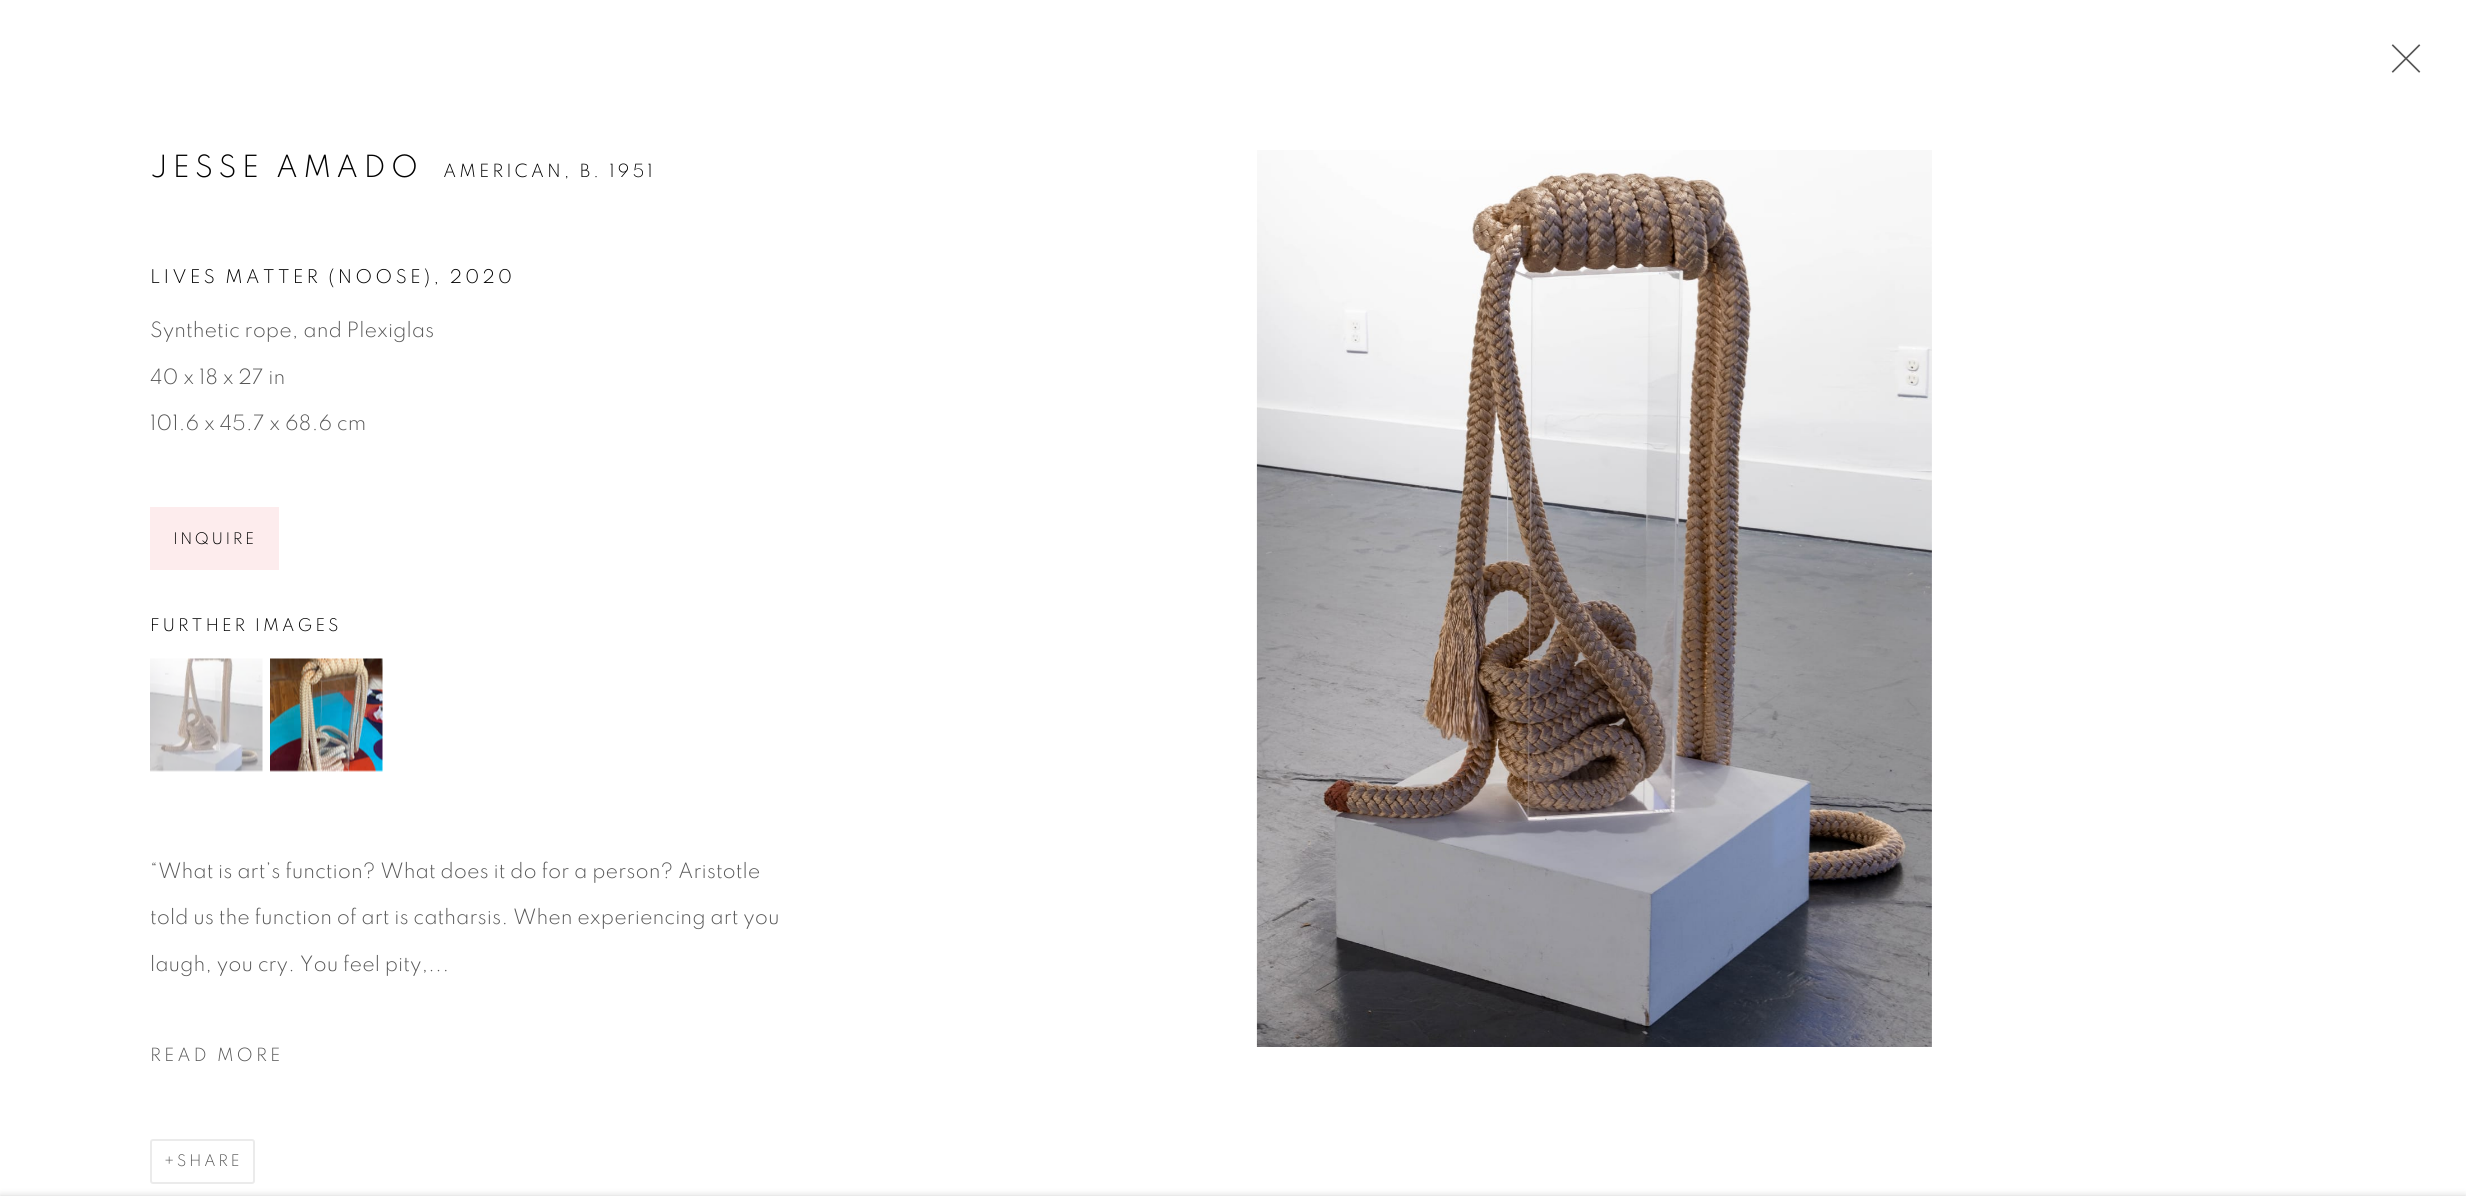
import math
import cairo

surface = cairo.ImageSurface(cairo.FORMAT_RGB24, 2466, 1196)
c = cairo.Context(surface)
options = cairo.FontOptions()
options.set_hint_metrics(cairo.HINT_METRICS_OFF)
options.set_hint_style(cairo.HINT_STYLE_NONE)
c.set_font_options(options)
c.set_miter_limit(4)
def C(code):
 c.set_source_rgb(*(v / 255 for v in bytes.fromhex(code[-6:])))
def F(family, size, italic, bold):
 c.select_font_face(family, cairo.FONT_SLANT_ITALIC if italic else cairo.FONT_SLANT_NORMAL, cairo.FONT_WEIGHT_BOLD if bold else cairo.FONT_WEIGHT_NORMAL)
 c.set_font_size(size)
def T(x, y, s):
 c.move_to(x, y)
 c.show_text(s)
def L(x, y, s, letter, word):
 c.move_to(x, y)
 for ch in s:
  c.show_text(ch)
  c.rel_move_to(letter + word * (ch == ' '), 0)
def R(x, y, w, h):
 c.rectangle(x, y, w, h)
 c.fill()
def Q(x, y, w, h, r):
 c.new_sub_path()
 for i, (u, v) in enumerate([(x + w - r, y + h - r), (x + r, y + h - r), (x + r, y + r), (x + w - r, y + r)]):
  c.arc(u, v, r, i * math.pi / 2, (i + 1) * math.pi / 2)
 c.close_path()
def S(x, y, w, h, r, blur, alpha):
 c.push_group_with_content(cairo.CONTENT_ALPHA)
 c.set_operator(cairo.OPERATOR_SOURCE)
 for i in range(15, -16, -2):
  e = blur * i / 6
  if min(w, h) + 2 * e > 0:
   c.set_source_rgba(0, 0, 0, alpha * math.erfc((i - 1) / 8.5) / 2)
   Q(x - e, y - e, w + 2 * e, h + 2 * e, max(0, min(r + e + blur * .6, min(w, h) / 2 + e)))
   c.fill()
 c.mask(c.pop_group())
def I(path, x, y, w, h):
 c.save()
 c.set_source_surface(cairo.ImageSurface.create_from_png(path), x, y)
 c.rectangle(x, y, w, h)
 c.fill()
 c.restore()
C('ffffff')
c.paint()
I('1.png',2391,44,30,29)
F('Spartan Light',31.5,0,0)
C('010101')
L(150,177,'JESSE AMADO',5,0)
F('Spartan Light',18.75,0,0)
L(443,177,'AMERICAN, B. 1951',3,0)
F('Spartan Light',19.5,0,0)
L(150,283,'LIVES MATTER (NOOSE), 2020',3.1,0)
F('Spartan Light',21.75,0,0)
C('585858')
T(150,337,'Synthetic rope, and Plexiglas')
T(150,384,'40 x 18 x 27 in')
T(150,430,'101.6 x 45.7 x 68.6 cm')
C('fdeced')
R(150,507,129,63)
F('Spartan Light',16.5,0,0)
C('010101')
L(173,544,'INQUIRE',2.5,0)
F('Spartan Light',18,0,0)
L(150,631,'FURTHER IMAGES',2.9,0)
I('2.png',150,658,113,114)
I('3.png',270,658,113,114)
F('Spartan Light',21.75,0,0)
C('585858')
T(150,878,'“What is art’s function? What does it do for a person? Aristotle')
T(150,924,'told us the function of art is catharsis. When experiencing art you')
T(150,971,'laugh, you cry. You feel pity,...')
F('Spartan Light',18.75,0,0)
L(150,1061,'READ MORE',3,0)
Q(151,1140,103,43,2)
C('ebebeb')
c.stroke()
F('Spartan Light',16.5,0,0)
C('585858')
L(164,1166,'+SHARE',2.5,0)
I('4.png',1256,150,676,897)
C('000000')
S(0,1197,2466,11,0,4,.23)
surface.write_to_png('o.png')
